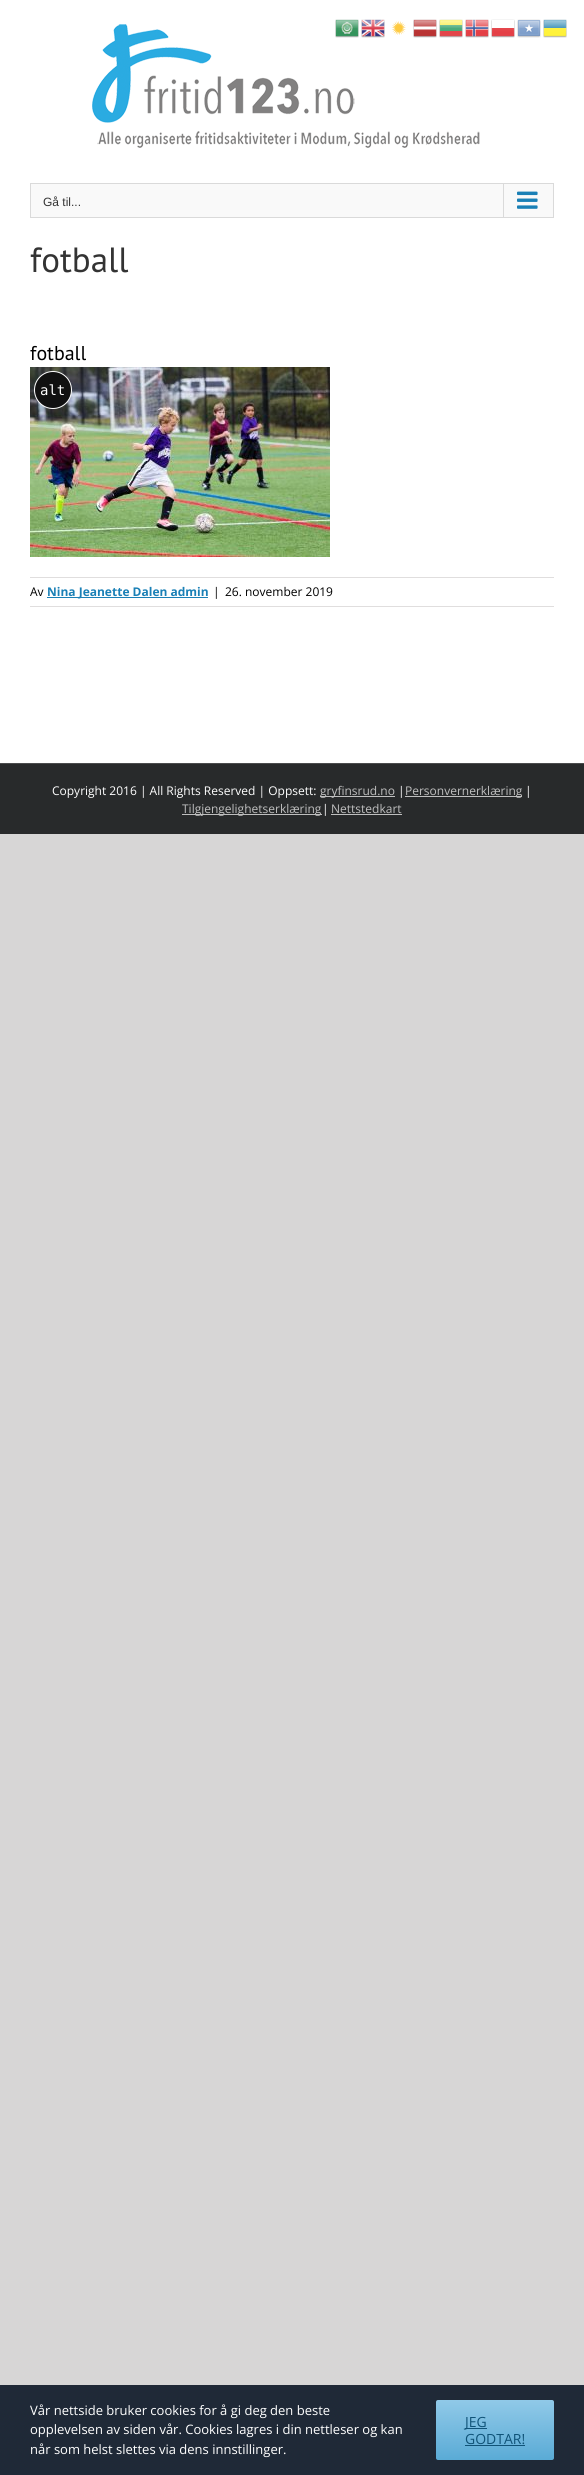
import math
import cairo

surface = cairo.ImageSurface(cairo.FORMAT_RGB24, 584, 2475)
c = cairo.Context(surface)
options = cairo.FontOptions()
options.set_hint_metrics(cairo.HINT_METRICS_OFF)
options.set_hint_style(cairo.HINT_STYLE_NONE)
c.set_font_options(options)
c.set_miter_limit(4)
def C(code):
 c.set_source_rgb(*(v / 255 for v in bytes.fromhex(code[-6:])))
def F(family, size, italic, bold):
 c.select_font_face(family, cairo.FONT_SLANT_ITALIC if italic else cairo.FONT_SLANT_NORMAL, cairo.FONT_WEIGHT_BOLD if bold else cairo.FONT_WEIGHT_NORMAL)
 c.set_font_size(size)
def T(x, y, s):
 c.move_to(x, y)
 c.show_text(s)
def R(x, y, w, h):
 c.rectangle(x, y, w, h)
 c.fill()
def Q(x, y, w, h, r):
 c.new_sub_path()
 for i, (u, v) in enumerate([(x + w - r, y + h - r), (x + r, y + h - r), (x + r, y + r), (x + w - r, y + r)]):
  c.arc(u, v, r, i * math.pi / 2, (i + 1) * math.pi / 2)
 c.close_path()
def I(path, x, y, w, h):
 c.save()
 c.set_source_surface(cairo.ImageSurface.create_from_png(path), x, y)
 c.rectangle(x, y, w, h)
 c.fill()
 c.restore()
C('d7d6d6')
c.paint()
C('ffffff')
R(0,0,584,763)
I('1.png',92,24,388,124)
C('f9f9f9')
c.rectangle(30.5,183.5,523,34)
c.fill_preserve()
C('dadada')
c.set_line_width(1)
c.stroke()
F('Liberation Sans',12,0,0)
C('333333')
T(43,206,'Gå til...')
C('dadada')
R(503,184,1,33)
I('2.png',517,191,21,18)
F('PT Sans',35,0,0)
C('333333')
T(30,272,'fotball')
F('PT Sans',20,0,0)
C('000000')
T(30,360,'fotball')
I('3.png',30,367,300,190)
C('111111')
c.arc(53,390,18.5,0,2 * math.pi)
c.fill_preserve()
C('ffffff')
c.stroke()
F('DejaVu Sans Mono',14,0,0)
T(40,395,'alt')
C('e0dede')
R(30,577,524,1)
R(30,606,524,1)
F('Open Sans',12,0,0)
C('000000')
T(30,596,'Av')
C('1a80b6')
R(47,597,161,1)
F('Open Sans',12,0,1)
T(47,596,'Nina Jeanette Dalen admin')
F('Open Sans',12,0,0)
C('000000')
T(213,596,'|')
T(225,596,'26. november 2019')
C('282a2b')
R(0,764,584,70)
C('4b4c4d')
R(0,763,584,1)
C('ffffff')
T(52,795,'Copyright 2016 | All Rights Reserved | Oppsett:')
C('bfbfbf')
R(320,796,75,1)
T(320,795,'gryfinsrud.no')
C('ffffff')
T(398,795,'|')
C('bfbfbf')
R(405,796,117,1)
T(405,795,'Personvernerklæring')
C('ffffff')
T(525,795,'|')
C('bfbfbf')
R(182,814,140,1)
T(182,813,'Tilgjengelighetserklæring')
C('ffffff')
T(322,813,'|')
C('bfbfbf')
T(331,813,'Nettstedkart')
R(331,814,71,1)
I('4.png',335,19,24,19)
I('5.png',361,19,24,19)
I('6.png',391,21,15,14)
I('7.png',413,19,24,19)
I('8.png',439,19,24,19)
I('9.png',465,19,24,19)
I('10.png',491,19,24,19)
I('11.png',517,19,24,19)
I('12.png',543,19,24,19)
C('1f2937')
R(0,2385,584,90)
F('Open Sans',13,0,0)
C('ffffff')
T(30,2415,'Vår nettside bruker cookies for å gi deg den beste')
T(30,2434,'opplevelsen av siden vår. Cookies lagres i din nettleser og kan')
T(30,2454,'når som helst slettes via dens innstillinger.')
gradient = cairo.LinearGradient(495,2400,495,2460)
gradient.add_color_stop_rgba(0,0.565,0.788,0.91,1)
gradient.add_color_stop_rgba(1,0.353,0.671,0.839,1)
c.set_source(gradient)
Q(436,2400,118,60,2)
c.fill()
C('105378')
R(465,2428,22,1)
F('Open Sans',14,0,0)
T(465,2427,'JEG')
T(465,2444,'GODTAR!')
R(465,2445,60,1)
surface.write_to_png('o.png')
